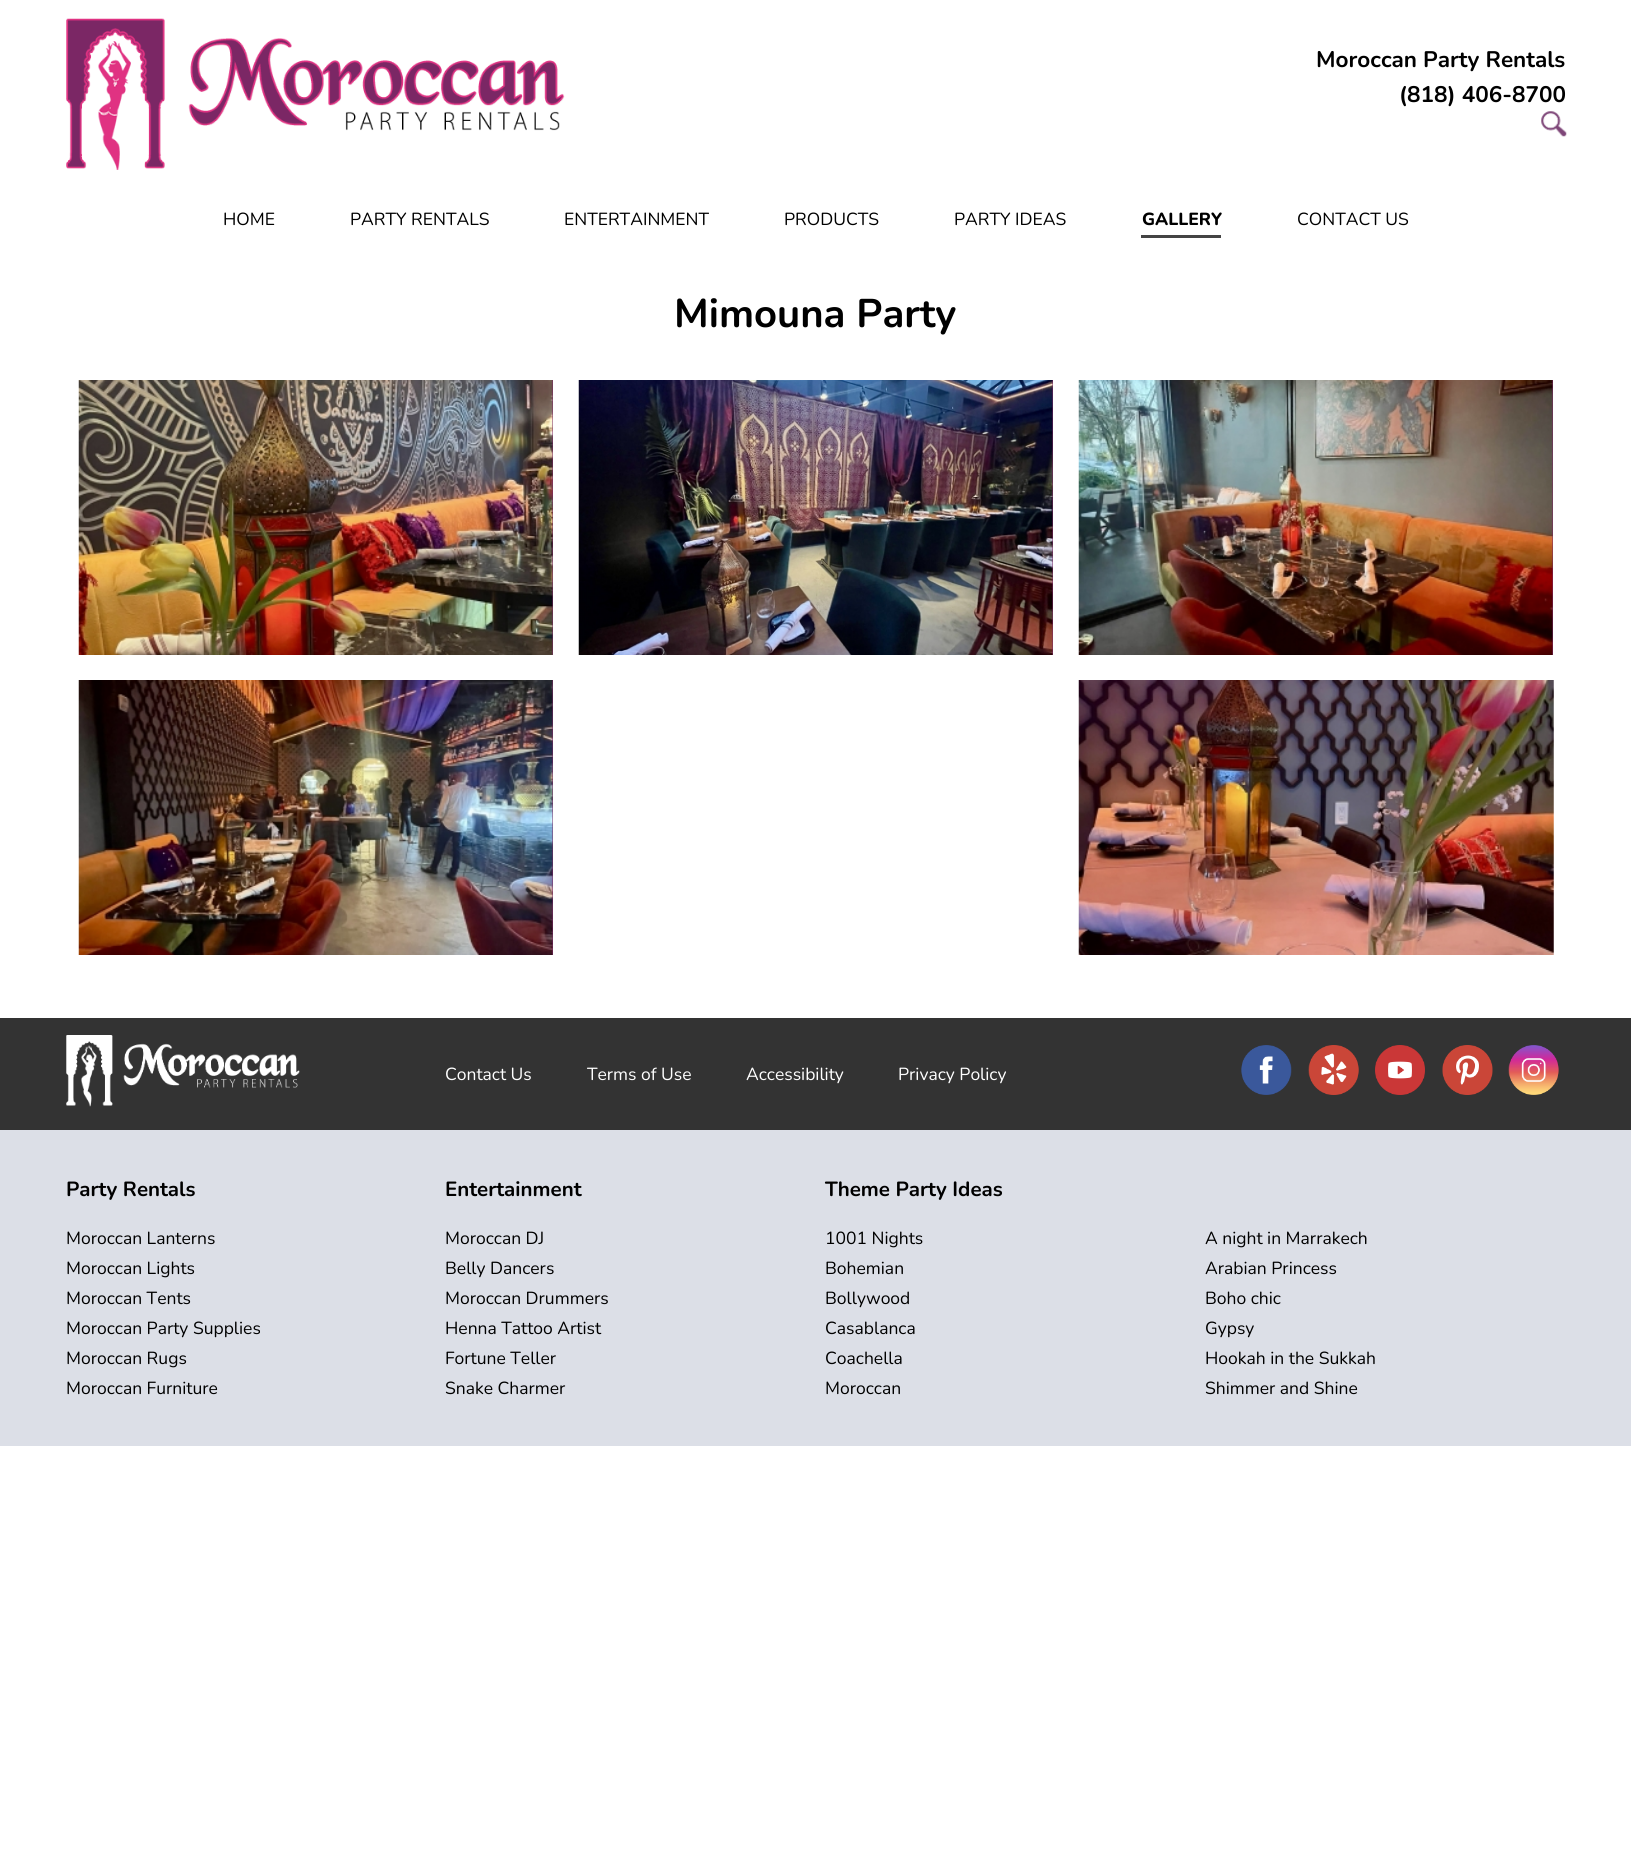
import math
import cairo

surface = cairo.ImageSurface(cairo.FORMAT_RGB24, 1631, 1871)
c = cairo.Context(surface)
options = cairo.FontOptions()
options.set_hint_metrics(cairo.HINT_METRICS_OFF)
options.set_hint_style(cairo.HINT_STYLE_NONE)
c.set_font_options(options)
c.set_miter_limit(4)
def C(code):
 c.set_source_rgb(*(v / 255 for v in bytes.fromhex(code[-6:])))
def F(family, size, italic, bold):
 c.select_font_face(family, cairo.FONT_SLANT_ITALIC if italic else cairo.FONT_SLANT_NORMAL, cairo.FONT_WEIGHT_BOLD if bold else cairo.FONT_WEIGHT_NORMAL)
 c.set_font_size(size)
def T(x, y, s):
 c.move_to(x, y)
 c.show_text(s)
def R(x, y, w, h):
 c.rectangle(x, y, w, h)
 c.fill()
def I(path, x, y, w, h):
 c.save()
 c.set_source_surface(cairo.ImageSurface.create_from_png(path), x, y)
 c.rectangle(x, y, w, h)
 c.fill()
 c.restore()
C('ffffff')
c.paint()
I('1.png',66,18,499,152)
F('Nunito',22.5,0,1)
C('000000')
T(1316,67,'Moroccan Party Rentals')
T(1399,102,'(818) 406-8700')
I('2.png',1541,111,26,26)
F('Nunito',17.5,0,0)
T(223,225,'HOME')
T(350,225,'PARTY RENTALS')
T(564,225,'ENTERTAINMENT')
T(784,225,'PRODUCTS')
T(954,225,'PARTY IDEAS')
F('Nunito ExtraBold',17.5,0,0)
T(1142,225,'GALLERY')
C('444444')
R(1141,235,80,3)
F('Nunito',17.5,0,0)
C('000000')
T(1297,225,'CONTACT US')
F('Nunito',40,0,1)
T(674,327,'Mimouna Party')
C('7a2664')
R(552,380,1,275)
I('3.png',78,380,475,275)
R(1052,380,1,275)
I('4.png',578,380,475,275)
R(1552,380,1,275)
I('5.png',1078,380,475,275)
R(552,680,1,275)
I('6.png',78,680,475,275)
I('7.png',1078,680,476,275)
C('333333')
R(0,1018,1631,112)
I('8.png',66,1035,234,72)
F('Nunito',17.5,0,0)
C('ffffff')
T(445,1080,'Contact Us')
T(587,1080,'Terms of Use')
T(746,1080,'Accessibility')
T(898,1080,'Privacy Policy')
I('9.png',1241,1045,51,50)
I('10.png',1308,1045,51,50)
I('11.png',1375,1045,50,50)
I('12.png',1442,1045,51,50)
I('13.png',1508,1045,51,50)
C('dcdfe7')
R(0,1130,1631,316)
F('Nunito',20.5,0,1)
C('000000')
T(66,1196,'Party Rentals')
F('Nunito',17.5,0,0)
T(66,1244,'Moroccan Lanterns')
T(66,1274,'Moroccan Lights')
T(66,1304,'Moroccan Tents')
T(66,1334,'Moroccan Party Supplies')
T(66,1364,'Moroccan Rugs')
T(66,1394,'Moroccan Furniture')
F('Nunito',20.5,0,1)
T(445,1196,'Entertainment')
F('Nunito',17.5,0,0)
T(445,1244,'Moroccan DJ')
T(445,1274,'Belly Dancers')
T(445,1304,'Moroccan Drummers')
T(445,1334,'Henna Tattoo Artist')
T(445,1364,'Fortune Teller')
T(445,1394,'Snake Charmer')
F('Nunito',20.5,0,1)
T(825,1196,'Theme Party Ideas')
F('Nunito',17.5,0,0)
T(825,1244,'1001 Nights')
T(825,1274,'Bohemian')
T(825,1304,'Bollywood')
T(825,1334,'Casablanca')
T(825,1364,'Coachella')
T(825,1394,'Moroccan')
T(1205,1244,'A night in Marrakech')
T(1205,1274,'Arabian Princess')
T(1205,1304,'Boho chic')
T(1205,1334,'Gypsy')
T(1205,1364,'Hookah in the Sukkah')
T(1205,1394,'Shimmer and Shine')
surface.write_to_png('o.png')
